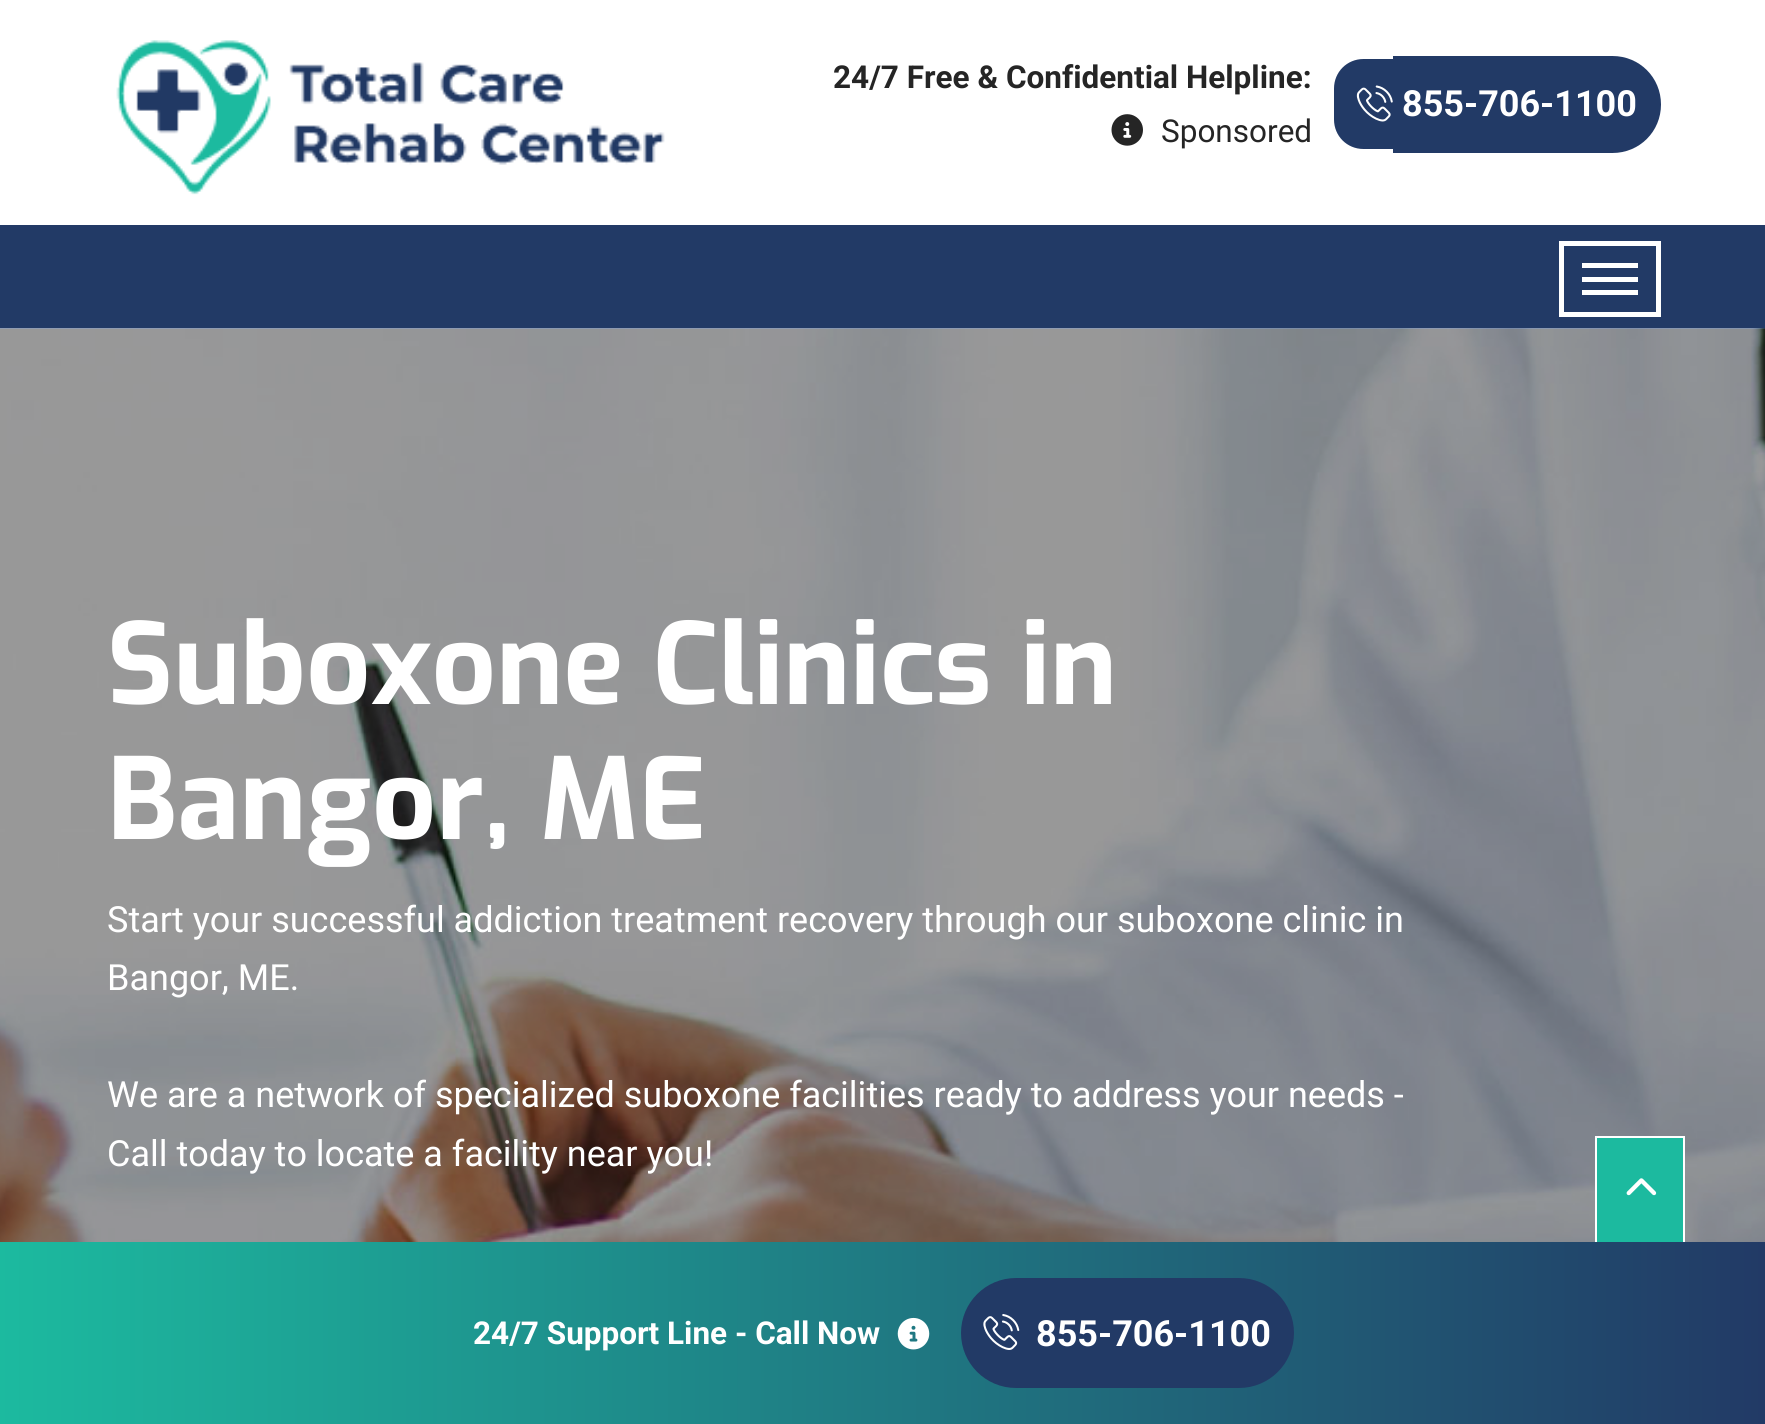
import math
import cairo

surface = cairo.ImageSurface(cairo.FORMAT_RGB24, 1765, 1424)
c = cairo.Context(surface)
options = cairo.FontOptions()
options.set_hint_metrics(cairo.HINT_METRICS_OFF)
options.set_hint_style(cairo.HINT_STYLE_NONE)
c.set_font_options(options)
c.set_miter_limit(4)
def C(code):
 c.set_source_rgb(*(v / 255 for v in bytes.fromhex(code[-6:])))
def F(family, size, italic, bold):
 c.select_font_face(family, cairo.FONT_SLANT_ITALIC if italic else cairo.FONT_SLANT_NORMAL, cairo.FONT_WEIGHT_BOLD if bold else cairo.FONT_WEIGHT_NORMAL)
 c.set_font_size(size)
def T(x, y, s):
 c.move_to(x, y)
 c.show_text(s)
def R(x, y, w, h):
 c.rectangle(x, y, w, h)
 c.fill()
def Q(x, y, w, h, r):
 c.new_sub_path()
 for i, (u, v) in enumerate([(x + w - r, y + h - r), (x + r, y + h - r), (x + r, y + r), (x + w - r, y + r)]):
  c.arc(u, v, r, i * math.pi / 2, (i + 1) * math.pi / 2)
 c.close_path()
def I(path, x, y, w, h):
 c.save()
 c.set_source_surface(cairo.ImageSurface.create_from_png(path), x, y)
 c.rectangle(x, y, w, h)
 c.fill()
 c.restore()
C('ffffff')
c.paint()
I('1.png',116,40,549,155)
F('Roboto',31.5,0,1)
C('252525')
T(833,88,'24/7 Free & Confidential Helpline:')
I('2.png',1111,114,32,32)
F('Roboto',31.5,0,0)
T(1161,142,'Sponsored')
C('223a66')
c.new_path()
c.move_to(1363.5,59)
c.line_to(1393,59)
c.line_to(1393,149)
c.line_to(1363.5,149)
c.curve_to(1347,149,1334,136,1334,119.5)
c.line_to(1334,88.5)
c.curve_to(1334,72,1347,59,1363.5,59)
c.close_path()
c.fill()
I('3.png',1356,85,37,37)
c.new_path()
c.move_to(1393,56)
c.line_to(1612.5,56)
c.curve_to(1639.5,56,1661,77.5,1661,104.5)
c.curve_to(1661,131.5,1639.5,153,1612.5,153)
c.line_to(1393,153)
c.close_path()
c.fill()
F('Roboto',36,0,1)
C('ffffff')
T(1402,116,'855-706-1100')
C('223a66')
R(0,225,1765,104)
c.rectangle(1561.5,243.5,97,71)
C('ffffff')
c.set_line_width(5)
c.stroke()
R(1582,263,56,5)
R(1582,277,56,5)
R(1582,290,56,5)
I('4.png',0,328,1765,914)
F('Exo',112.5,0,1)
T(107,704,'Suboxone Clinics in')
T(107,839,'Bangor, ME')
F('Roboto',36,0,0)
T(107,932,'Start your successful addiction treatment recovery through our suboxone clinic in')
T(107,990,'Bangor, ME.')
T(107,1107,'We are a network of specialized suboxone facilities ready to address your needs -')
T(107,1166,'Call today to locate a facility near you!')
C('1cba9f')
c.rectangle(1596,1137,88,106)
c.fill_preserve()
C('ffffff')
c.set_line_width(2)
c.stroke()
I('5.png',1626,1178,31,18)
gradient = cairo.LinearGradient(0,1333,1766,1333)
gradient.add_color_stop_rgba(0,0.11,0.729,0.624,1)
gradient.add_color_stop_rgba(1,0.133,0.227,0.4,1)
c.set_source(gradient)
R(0,1242,1765,182)
F('Roboto',31.5,0,1)
C('ffffff')
T(473,1344,'24/7 Support Line - Call Now')
I('6.png',897,1317,33,33)
C('223a66')
Q(961,1278,333,110,55)
c.fill()
I('7.png',983,1314,37,36)
F('Roboto',36,0,1)
C('ffffff')
T(1036,1346,'855-706-1100')
surface.write_to_png('o.png')
